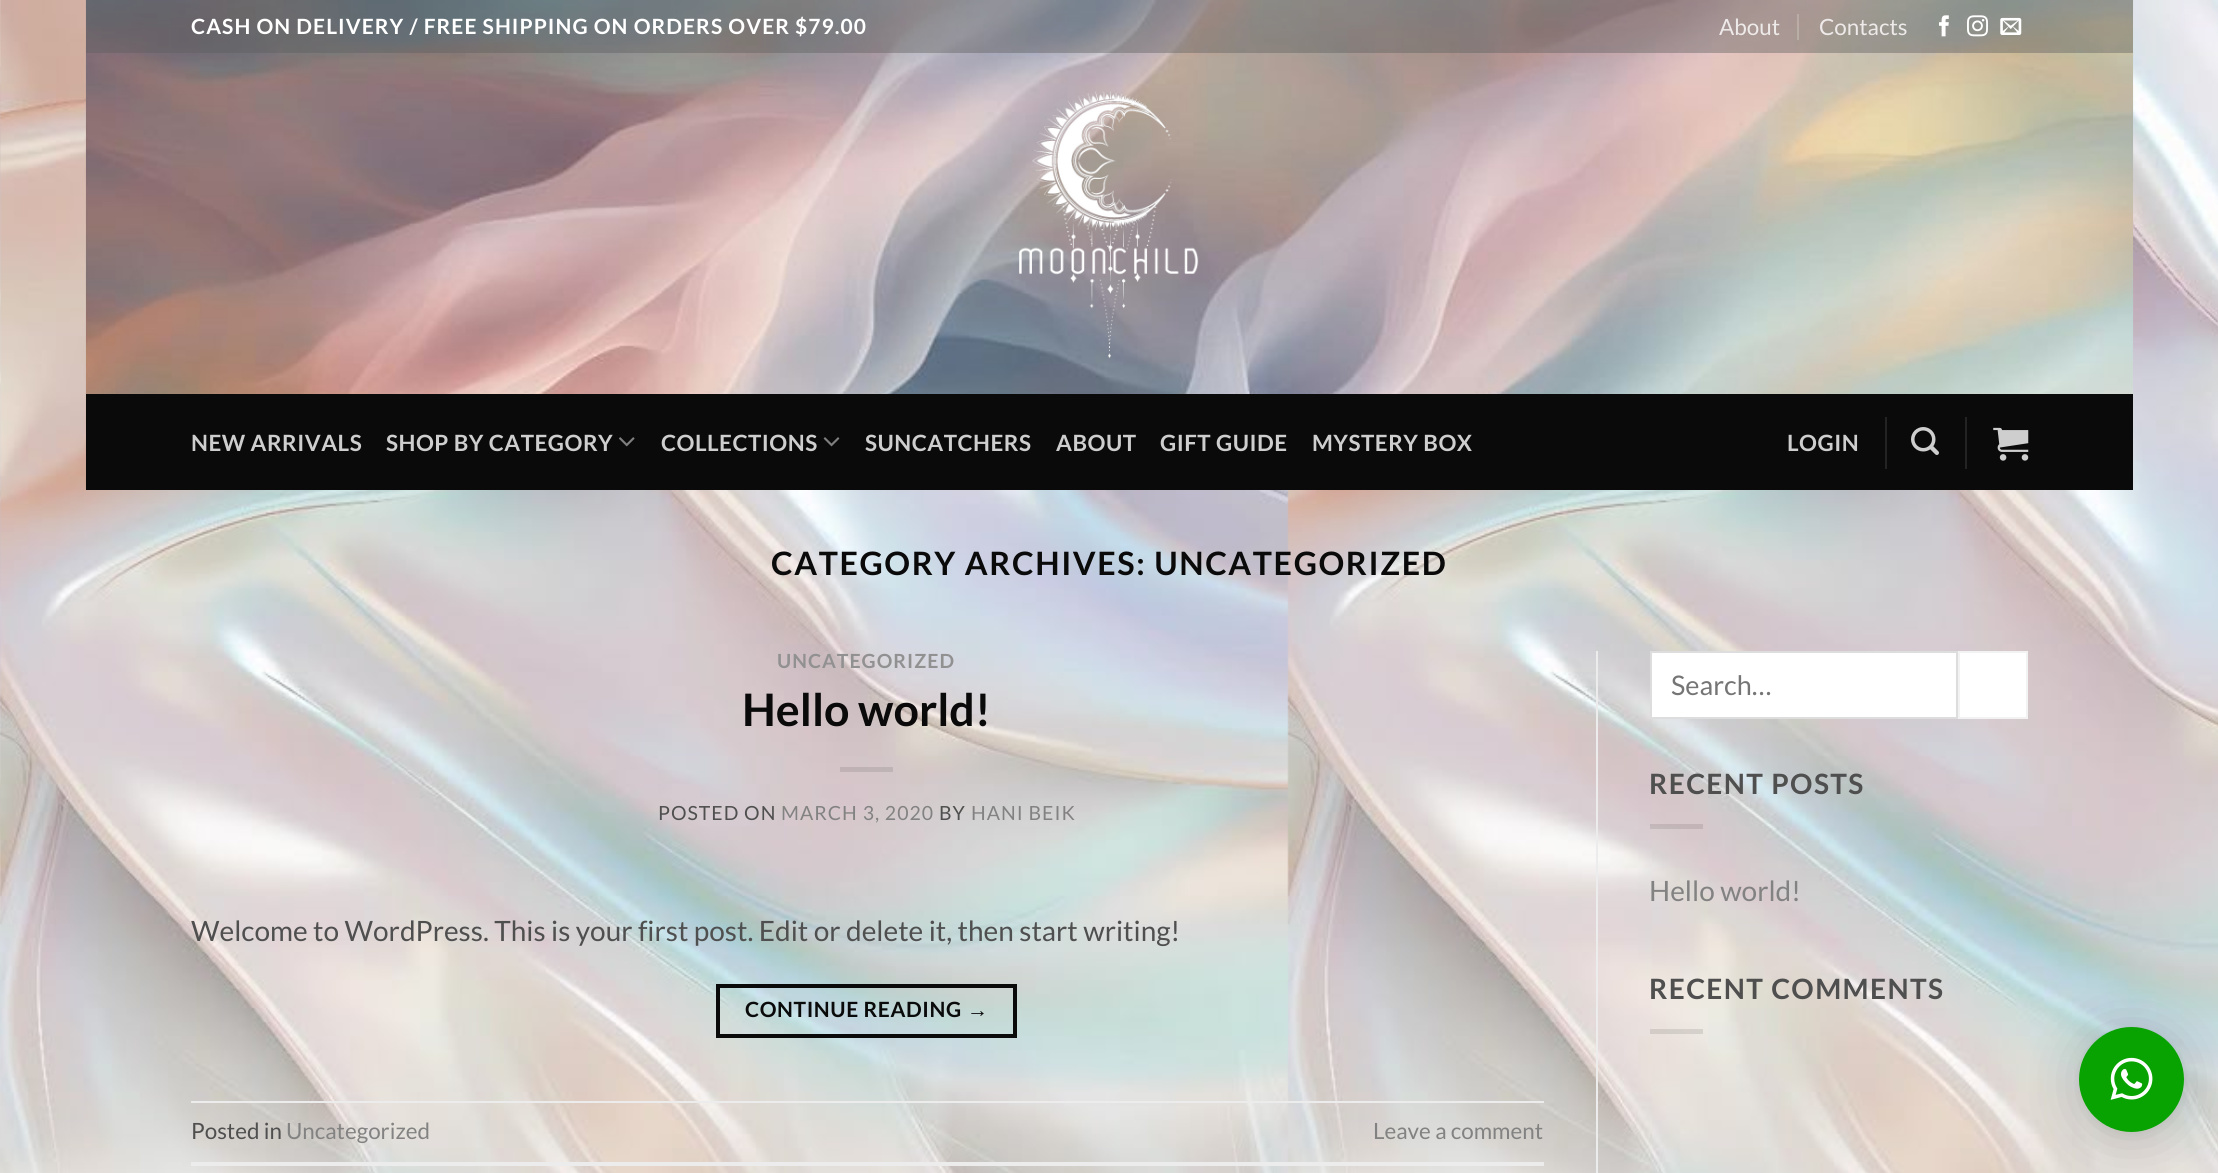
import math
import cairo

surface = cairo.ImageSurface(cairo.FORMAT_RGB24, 2218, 1173)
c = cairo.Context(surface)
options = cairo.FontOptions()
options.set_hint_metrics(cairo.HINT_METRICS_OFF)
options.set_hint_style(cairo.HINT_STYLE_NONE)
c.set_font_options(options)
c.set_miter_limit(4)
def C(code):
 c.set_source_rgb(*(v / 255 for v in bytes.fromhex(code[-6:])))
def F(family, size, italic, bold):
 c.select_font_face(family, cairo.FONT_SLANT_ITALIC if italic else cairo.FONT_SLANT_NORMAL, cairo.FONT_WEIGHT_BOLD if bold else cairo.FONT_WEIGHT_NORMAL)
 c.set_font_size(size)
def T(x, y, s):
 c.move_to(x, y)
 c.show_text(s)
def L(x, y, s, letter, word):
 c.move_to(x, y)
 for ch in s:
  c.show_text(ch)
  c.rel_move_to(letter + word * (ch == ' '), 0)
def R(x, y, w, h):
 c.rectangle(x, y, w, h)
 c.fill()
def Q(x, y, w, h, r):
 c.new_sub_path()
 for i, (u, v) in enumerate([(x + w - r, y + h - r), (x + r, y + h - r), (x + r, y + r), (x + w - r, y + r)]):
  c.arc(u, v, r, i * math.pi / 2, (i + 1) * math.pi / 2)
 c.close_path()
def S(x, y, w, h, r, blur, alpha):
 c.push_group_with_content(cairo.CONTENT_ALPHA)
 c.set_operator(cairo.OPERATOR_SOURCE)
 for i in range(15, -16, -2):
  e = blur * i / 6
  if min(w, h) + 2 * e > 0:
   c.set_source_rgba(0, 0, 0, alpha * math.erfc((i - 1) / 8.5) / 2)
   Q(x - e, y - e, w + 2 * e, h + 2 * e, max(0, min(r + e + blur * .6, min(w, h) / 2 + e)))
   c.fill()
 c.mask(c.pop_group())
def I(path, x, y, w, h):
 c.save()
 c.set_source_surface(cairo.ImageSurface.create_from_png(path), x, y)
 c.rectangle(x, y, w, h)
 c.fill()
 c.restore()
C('ffffff')
c.paint()
I('1.png',0,0,2218,1173)
I('2.png',85,0,2049,490)
c.set_source_rgba(0.369,0.369,0.369,0.42)
R(86,0,2047,53)
F('Lato',21,0,1)
C('ffffff')
L(191,34,'CASH ON DELIVERY / FREE SHIPPING ON ORDERS OVER $79.00',1.05,0)
F('Lato',22.4,0,0)
C('eeeaea')
T(1719,35,'About')
c.set_source_rgba(1,1,1,0.2)
R(1797,14,2,26)
C('eeeaea')
T(1819,35,'Contacts')
I('3.png',1939,15,10,22)
I('4.png',1967,15,21,22)
I('5.png',2000,17,22,18)
I('6.png',1019,90,180,269)
C('0a0a0a')
R(86,394,2047,96)
F('Lato',22.4,0,1)
C('cecece')
L(191,451,'NEW ARRIVALS',.5,0)
L(386,451,'SHOP BY CATEGORY',.5,0)
I('7.png',619,437,16,10)
L(661,451,'COLLECTIONS',.5,0)
I('8.png',823,437,17,10)
L(865,451,'SUNCATCHERS',.5,0)
L(1056,451,'ABOUT',.5,0)
L(1160,451,'GIFT GUIDE',.5,0)
L(1312,451,'MYSTERY BOX',.5,0)
L(1787,451,'LOGIN',.5,0)
C('232323')
R(1885,417,2,52)
I('9.png',1911,427,28,28)
R(1965,417,2,52)
I('10.png',1993,427,36,34)
F('Lato',32.2,0,1)
C('0a0a0a')
L(771,575,'CATEGORY ARCHIVES: UNCATEGORIZED',1.6,0)
F('Lato',19.5,0,1)
C('929192')
L(777,668,'UNCATEGORIZED',1,0)
F('Lato',44.75,0,1)
C('0a0a0a')
T(742,726,'Hello world!')
c.set_source_rgba(0,0,0,0.1)
R(840,767,53,5)
F('Lato',19.5,0,0)
C('4f4f4f')
L(658,820,'POSTED ON',1,0)
C('828282')
L(781,820,'MARCH 3, 2020',1,0)
C('4f4f4f')
L(939,820,'BY',1,0)
C('828282')
L(971,820,'HANI BEIK',1,0)
F('Lato',28,0,0)
C('4f4f4f')
T(191,941,'Welcome to WordPress. This is your first post. Edit or delete it, then start writing!')
c.rectangle(718,986,297,50)
C('0a0a0a')
c.set_line_width(4)
c.stroke()
F('Lato',21,0,1)
L(745,1017,'CONTINUE READING',.6,0)
F('Liberation Sans',21,0,1)
L(967,1017,'→',.6,0)
C('ececec')
R(191,1101,1353,2)
R(191,1162,1353,4)
F('Lato',22.4,0,0)
C('4f4f4f')
T(191,1139,'Posted in')
C('828282')
T(286,1139,'Uncategorized')
T(1373,1139,'Leave a comment')
C('ececec')
R(1596,651,2,522)
C('ffffff')
c.rectangle(1651,652,306,66)
c.fill_preserve()
C('dddddd')
c.set_line_width(2)
c.stroke()
F('Lato',27,0,0)
C('757575')
T(1671,695,'Search…')
C('ffffff')
c.rectangle(1959,652,68,66)
c.fill_preserve()
C('f2f2f2')
c.stroke()
F('Lato',28,0,1)
C('4f4f4f')
L(1649,794,'RECENT POSTS',1.4,0)
c.set_source_rgba(0,0,0,0.1)
R(1650,824,53,5)
F('Lato',28,0,0)
C('828282')
T(1649,901,'Hello world!')
F('Lato',28,0,1)
C('4f4f4f')
L(1649,999,'RECENT COMMENTS',1.4,0)
c.set_source_rgba(0,0,0,0.1)
R(1650,1029,53,5)
C('000000')
S(2079,1031,105,105,52.5,28,.16)
S(2079,1029,105,105,52.5,5,.06)
C('08a300')
c.arc(2131.5,1079.5,52.5,0,2 * math.pi)
c.fill()
I('11.png',2110,1057,43,43)
surface.write_to_png('o.png')
